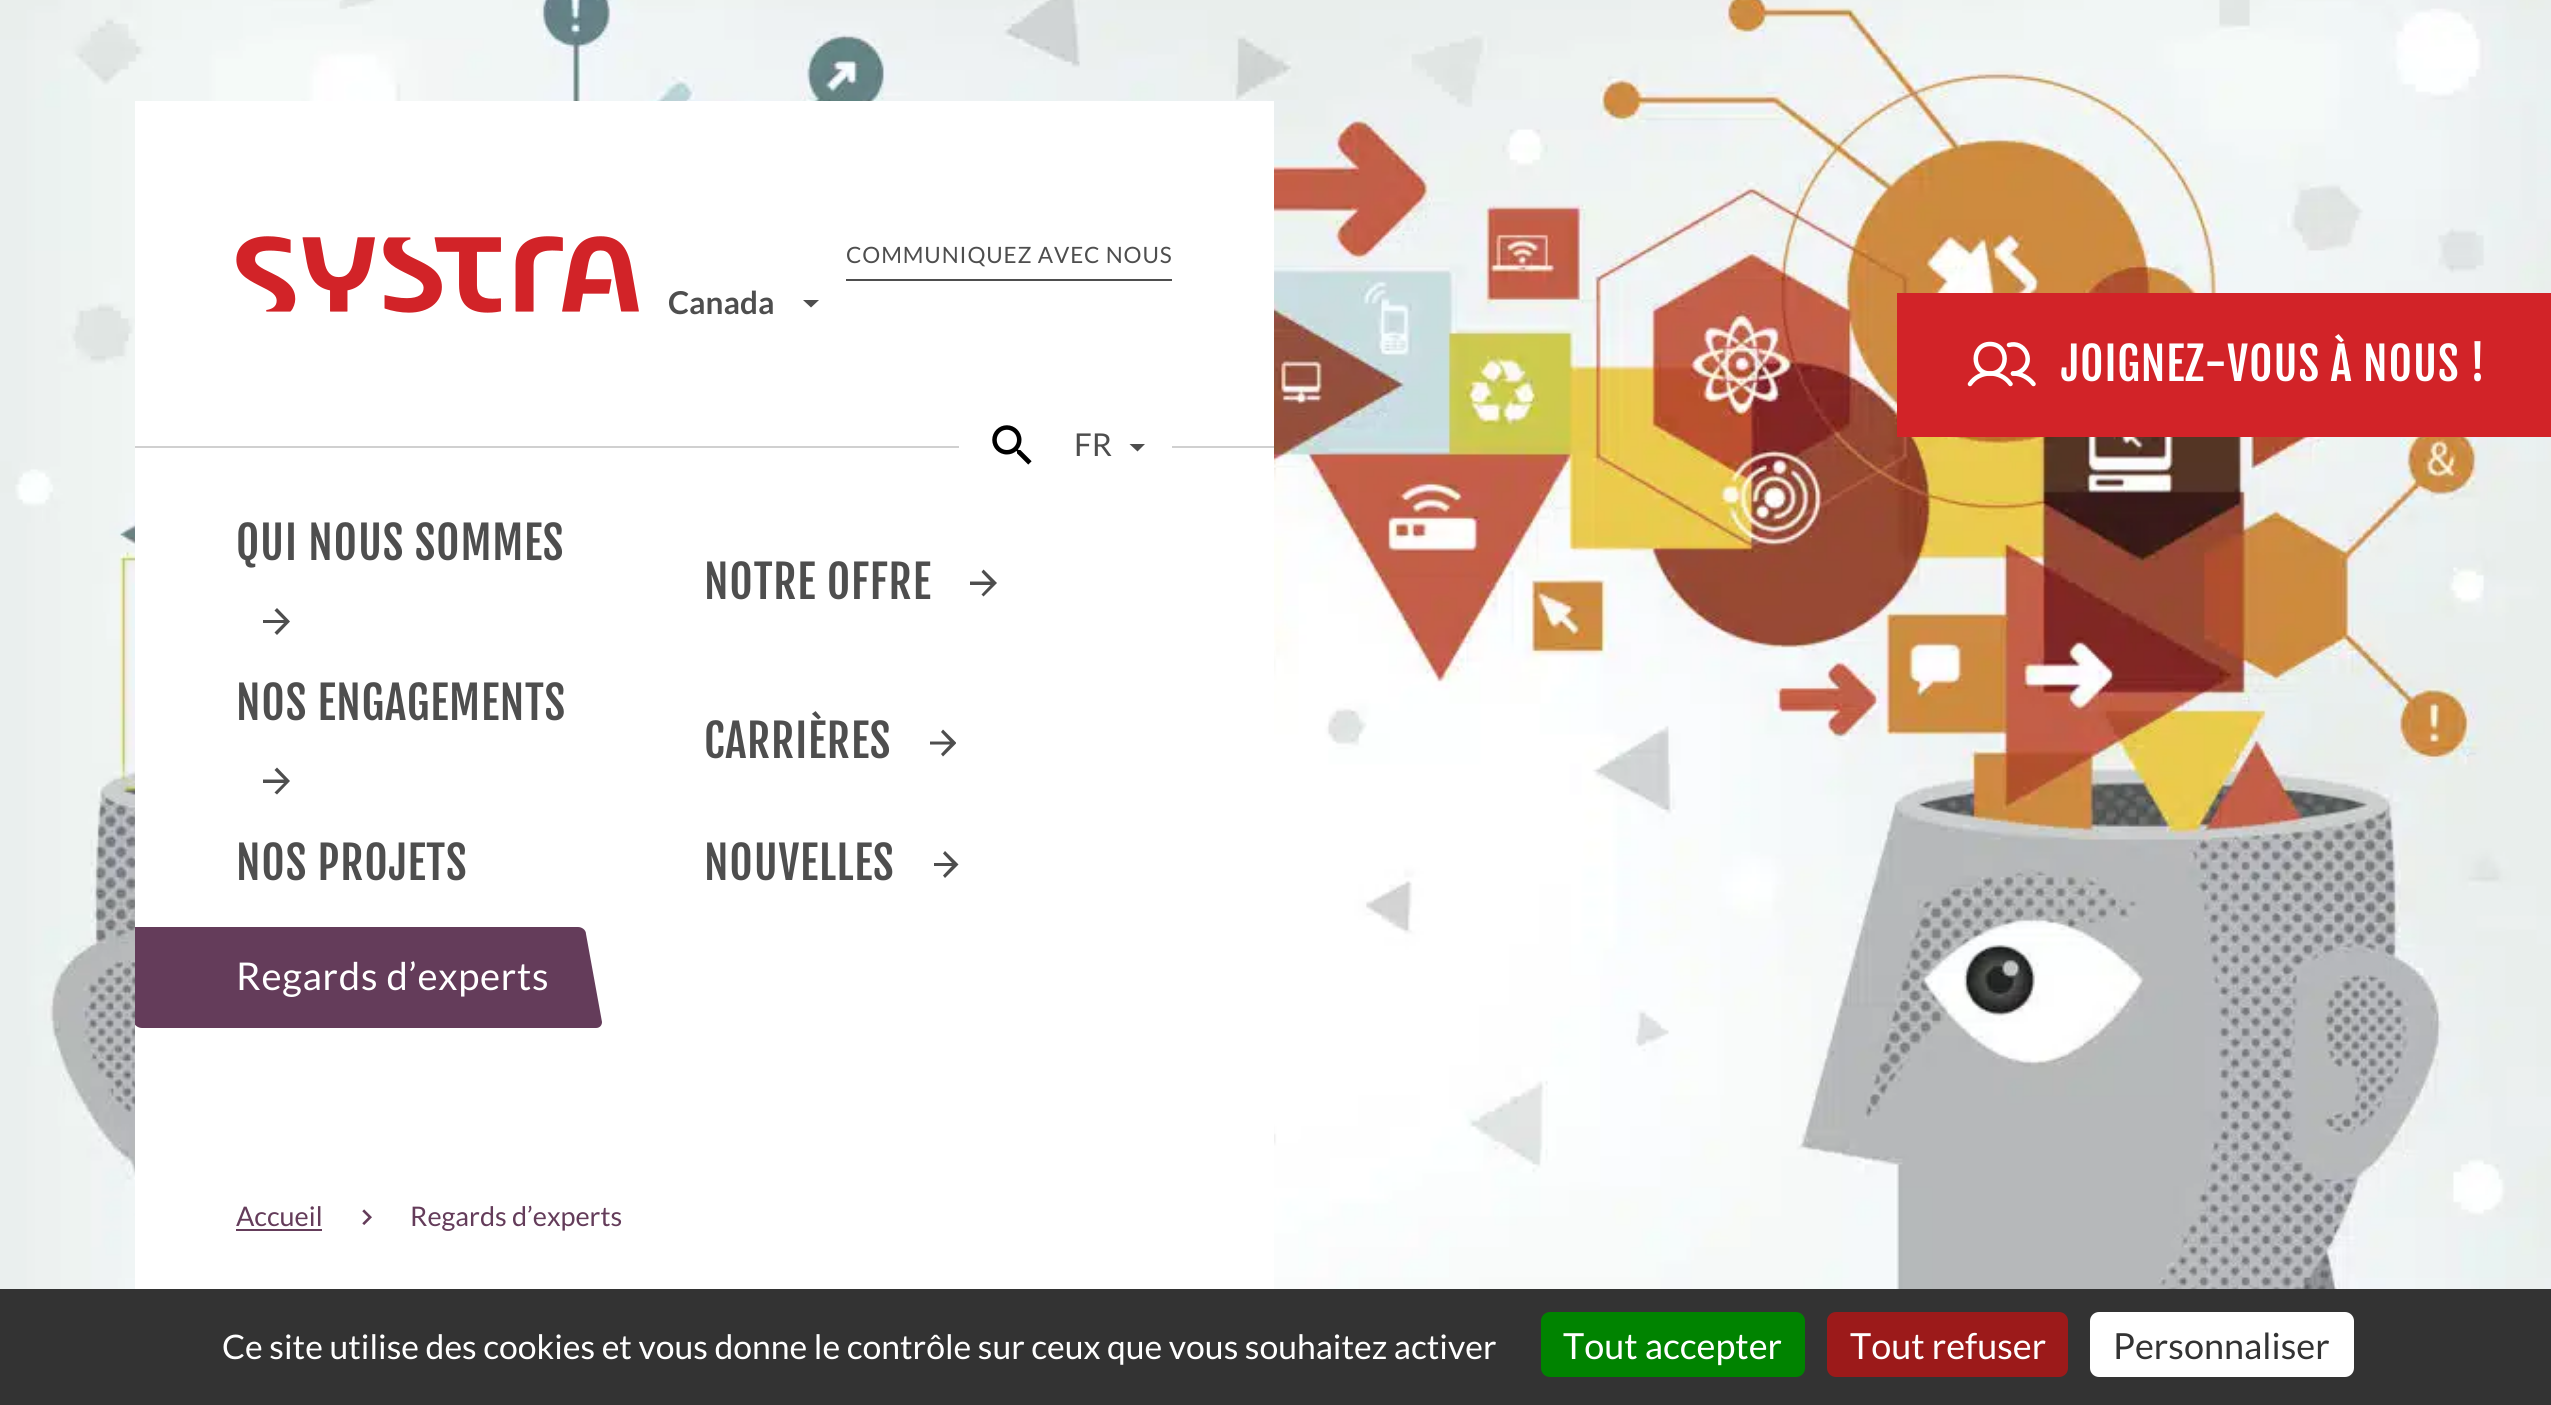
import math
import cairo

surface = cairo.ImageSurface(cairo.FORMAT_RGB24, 2551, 1405)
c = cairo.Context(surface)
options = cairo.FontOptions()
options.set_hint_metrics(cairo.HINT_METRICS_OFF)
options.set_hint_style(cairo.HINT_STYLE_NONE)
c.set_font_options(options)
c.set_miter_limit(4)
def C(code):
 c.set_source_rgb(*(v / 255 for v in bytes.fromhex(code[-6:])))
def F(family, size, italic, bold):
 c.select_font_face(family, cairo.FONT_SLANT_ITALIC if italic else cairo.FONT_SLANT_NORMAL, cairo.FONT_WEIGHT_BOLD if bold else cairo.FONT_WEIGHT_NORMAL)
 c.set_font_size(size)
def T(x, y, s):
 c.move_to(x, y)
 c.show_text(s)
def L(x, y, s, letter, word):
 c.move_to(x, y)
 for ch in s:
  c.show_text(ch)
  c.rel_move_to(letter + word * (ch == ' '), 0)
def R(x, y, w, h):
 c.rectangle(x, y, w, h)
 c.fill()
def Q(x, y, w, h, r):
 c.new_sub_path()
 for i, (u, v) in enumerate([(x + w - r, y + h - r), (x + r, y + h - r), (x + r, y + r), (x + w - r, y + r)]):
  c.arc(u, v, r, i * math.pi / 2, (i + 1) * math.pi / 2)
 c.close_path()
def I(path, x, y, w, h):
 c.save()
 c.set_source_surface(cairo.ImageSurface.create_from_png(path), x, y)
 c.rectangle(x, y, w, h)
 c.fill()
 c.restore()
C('ffffff')
c.paint()
I('1.png',0,0,2551,1289)
C('ffffff')
R(135,101,1139,1188)
C('4e4e4e')
R(846,279,326,2)
F('Lato',22.5,0,0)
L(846,263,'COMMUNIQUEZ AVEC NOUS',.9,0)
I('2.png',236,236,403,77)
F('Lato',31.5,0,1)
T(668,314,'Canada')
c.new_path()
c.move_to(811,307.5)
c.line_to(819,300)
c.line_to(803,300)
c.close_path()
c.fill()
C('d0d0d0')
R(135,446,1139,2)
C('ffffff')
R(959,446,213,2)
I('3.png',992,425,40,40)
F('Lato',31.5,0,0)
C('4e4e4e')
T(1074,456,'FR')
c.new_path()
c.move_to(1137.5,451.5)
c.line_to(1145,444)
c.line_to(1129.5,444)
c.close_path()
c.fill()
F('Fjalla One',45,0,0)
L(236,560,'QUI NOUS SOMMES',.8,0)
c.new_path()
c.move_to(277,608)
c.line_to(274.5,610.5)
c.line_to(284,620)
c.line_to(263,620)
c.line_to(263,623)
c.line_to(284,623)
c.line_to(274.5,632.5)
c.line_to(277,635)
c.line_to(290,621.5)
c.close_path()
c.fill()
L(704,599,'NOTRE OFFRE',.8,0)
c.new_path()
c.move_to(983.5,569.5)
c.line_to(981.5,572)
c.line_to(990.5,581.5)
c.line_to(970,581.5)
c.line_to(970,585)
c.line_to(990.5,585)
c.line_to(981.5,594.5)
c.line_to(983.5,596.5)
c.line_to(997,583)
c.close_path()
c.fill()
L(236,720,'NOS ENGAGEMENTS',.8,0)
c.new_path()
c.move_to(277,767.5)
c.line_to(274.5,770)
c.line_to(284,779.5)
c.line_to(263,779.5)
c.line_to(263,783)
c.line_to(284,783)
c.line_to(274.5,792.5)
c.line_to(277,794.5)
c.line_to(290,781)
c.close_path()
c.fill()
L(704,758,'CARRIÈRES',.8,0)
c.save()
c.rectangle(930,720,26,45)
c.clip()
c.new_path()
c.move_to(943,729.5)
c.line_to(941,732)
c.line_to(950,741.5)
c.line_to(929.5,741.5)
c.line_to(929.5,744.5)
c.line_to(950,744.5)
c.line_to(941,754)
c.line_to(943,756.5)
c.line_to(956.5,743)
c.close_path()
c.fill()
c.restore()
L(236,880,'NOS PROJETS',.8,0)
L(704,880,'NOUVELLES',.8,0)
c.save()
c.rectangle(934,842,25,45)
c.clip()
c.new_path()
c.move_to(945,851)
c.line_to(943,853.5)
c.line_to(952,863)
c.line_to(931.5,863)
c.line_to(931.5,866)
c.line_to(952,866)
c.line_to(943,875.5)
c.line_to(945,878)
c.line_to(958.5,864.5)
c.close_path()
c.fill()
c.restore()
c.save()
c.rectangle(135,500,1139,549)
c.clip()
C('643c5a')
c.new_path()
c.move_to(124,927)
c.line_to(578,927)
c.curve_to(582,927,586,930,586,934)
c.line_to(602,1022)
c.curve_to(602,1025,600,1028,596,1028)
c.line_to(142,1028)
c.curve_to(138,1028,134,1025,134,1022)
c.line_to(118,934)
c.curve_to(118,930,120,927,124,927)
c.close_path()
c.fill()
c.restore()
F('Lato',38.25,0,0)
C('ffffff')
L(236,990,'Regards d’experts',.75,0)
F('Lato',27,0,0)
C('643c5a')
T(236,1226,'Accueil')
R(236,1229,86,2)
I('4.png',362,1209,10,16)
T(410,1226,'Regards d’experts')
C('d22328')
R(1897,293,654,144)
c.new_path()
c.move_to(1990,373.5)
c.curve_to(2009.5,373.5,2009.5,344,1990,344)
c.curve_to(1971,344,1971,373.5,1990,373.5)
c.close_path()
C('ffffff')
c.set_line_width(4.5)
c.stroke()
c.new_path()
c.move_to(2009,345)
c.curve_to(2024,340.5,2034.5,360,2022.5,370)
c.curve_to(2019.5,372.5,2016.5,373.5,2013,373.5)
c.move_to(1970,384)
c.curve_to(1979.5,370,2000.5,370,2010.5,384)
c.set_line_cap(cairo.LINE_CAP_ROUND)
c.set_line_join(cairo.LINE_JOIN_ROUND)
c.stroke()
c.new_path()
c.move_to(2013,373.5)
c.curve_to(2021,373.5,2028.5,377.5,2033.5,384)
c.stroke()
F('Fjalla One',45,0,0)
L(2061,381,'JOIGNEZ-VOUS À NOUS !',.9,0)
C('333333')
R(0,1289,2551,116)
F('Lato',33.75,0,0)
C('ffffff')
T(222,1359,'Ce site utilise des cookies et vous donne le contrôle sur ceux que vous souhaitez activer')
C('008300')
Q(1541,1312,264,65,9)
c.fill()
F('Lato',36,0,0)
C('ffffff')
T(1563,1359,'Tout accepter')
C('9c1a1a')
Q(1827,1312,241,65,9)
c.fill()
C('ffffff')
T(1850,1359,'Tout refuser')
Q(2090,1312,264,65,9)
c.fill()
C('333333')
T(2113,1359,'Personnaliser')
surface.write_to_png('o.png')
